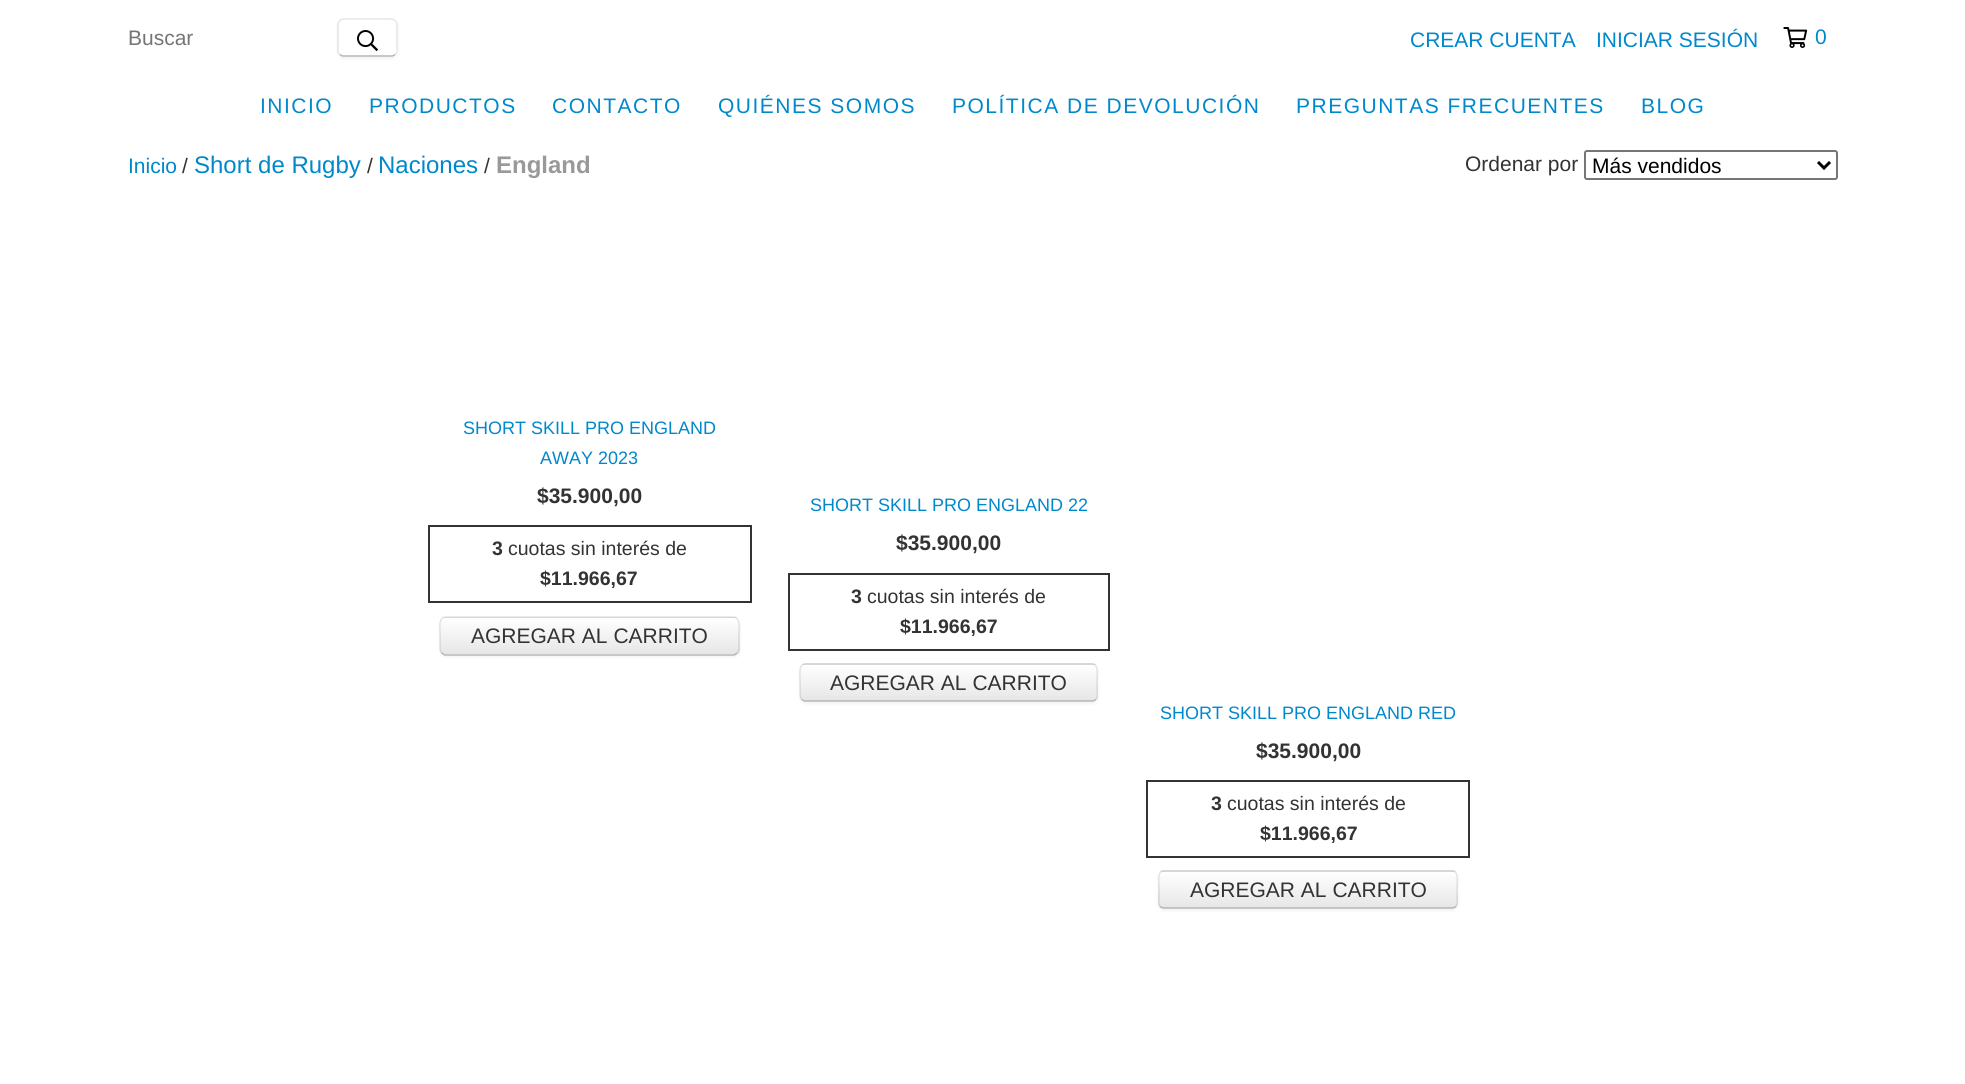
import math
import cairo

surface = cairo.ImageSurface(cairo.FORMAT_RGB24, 1965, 1084)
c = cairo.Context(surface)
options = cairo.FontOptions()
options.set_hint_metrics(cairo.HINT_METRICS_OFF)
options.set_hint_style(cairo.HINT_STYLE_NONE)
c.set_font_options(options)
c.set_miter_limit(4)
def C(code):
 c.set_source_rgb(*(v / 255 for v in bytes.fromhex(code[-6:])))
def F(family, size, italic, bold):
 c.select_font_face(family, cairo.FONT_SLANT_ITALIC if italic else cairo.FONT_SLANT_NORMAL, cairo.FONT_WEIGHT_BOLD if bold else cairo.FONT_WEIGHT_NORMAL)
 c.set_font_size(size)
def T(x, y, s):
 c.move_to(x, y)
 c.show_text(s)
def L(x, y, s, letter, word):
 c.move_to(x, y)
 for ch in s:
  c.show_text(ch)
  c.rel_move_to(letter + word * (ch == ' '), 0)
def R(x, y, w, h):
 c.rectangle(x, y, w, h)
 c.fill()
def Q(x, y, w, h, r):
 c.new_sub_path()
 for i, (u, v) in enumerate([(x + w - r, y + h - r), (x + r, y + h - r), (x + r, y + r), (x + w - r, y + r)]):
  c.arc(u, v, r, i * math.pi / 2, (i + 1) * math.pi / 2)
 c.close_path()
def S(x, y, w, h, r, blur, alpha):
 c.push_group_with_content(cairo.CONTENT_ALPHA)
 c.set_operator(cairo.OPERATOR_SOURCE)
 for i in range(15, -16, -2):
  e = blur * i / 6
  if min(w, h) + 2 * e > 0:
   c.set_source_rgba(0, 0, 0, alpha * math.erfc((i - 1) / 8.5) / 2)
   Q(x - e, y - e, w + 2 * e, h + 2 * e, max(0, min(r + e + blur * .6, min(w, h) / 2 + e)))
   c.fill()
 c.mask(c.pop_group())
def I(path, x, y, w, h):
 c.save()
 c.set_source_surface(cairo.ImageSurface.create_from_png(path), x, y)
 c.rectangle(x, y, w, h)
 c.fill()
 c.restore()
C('ffffff')
c.paint()
F('Liberation Sans',21,0,0)
C('757575')
T(128,45,'Buscar')
c.save()
c.set_fill_rule(cairo.FILL_RULE_EVEN_ODD)
c.new_path()
c.move_to(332,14)
c.line_to(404,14)
c.line_to(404,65)
c.line_to(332,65)
c.close_path()
c.move_to(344,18)
c.line_to(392,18)
c.curve_to(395.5,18,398,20.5,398,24)
c.line_to(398,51)
c.curve_to(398,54.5,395.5,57,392,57)
c.line_to(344,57)
c.curve_to(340.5,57,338,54.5,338,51)
c.line_to(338,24)
c.curve_to(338,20.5,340.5,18,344,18)
c.close_path()
c.clip()
C('000000')
S(338,20,60,39,6,1.5,.05)
c.restore()
c.new_path()
c.move_to(395,54.5)
c.curve_to(394,55.5,393,56,391.5,56)
c.line_to(343.5,56)
c.curve_to(342,56,341,55.5,340,54.5)
C('b3b3b3')
c.set_line_width(1.5)
c.stroke()
c.new_path()
c.move_to(340,54.5)
c.curve_to(339,53.5,338,52.5,338,51)
c.line_to(338,24)
c.curve_to(338,22.5,339,21.5,340,20.5)
c.curve_to(341,19.5,342,19,343.5,19)
c.line_to(391.5,19)
c.curve_to(393,19,394,19.5,395,20.5)
c.curve_to(396,21.5,397,22.5,397,24)
c.line_to(397,51)
c.curve_to(397,52.5,396,53.5,395,54.5)
c.set_source_rgba(0,0,0,0.1)
c.stroke()
I('1.png',357,30,21,21)
C('0088cc')
T(1410,47,'CREAR CUENTA')
T(1596,47,'INICIAR SESIÓN')
I('2.png',1783,27,25,21)
L(1815,44,'0',1.5,0)
L(260,113,'INICIO',1.5,0)
L(369,113,'PRODUCTOS',1.5,0)
L(552,113,'CONTACTO',1.5,0)
L(718,113,'QUIÉNES SOMOS',1.5,0)
L(952,113,'POLÍTICA DE DEVOLUCIÓN',1.5,0)
L(1296,113,'PREGUNTAS FRECUENTES',1.5,0)
L(1641,113,'BLOG',1.5,0)
T(128,173,'Inicio')
C('333333')
T(182,173,'/')
F('Liberation Sans',24,0,0)
C('0088cc')
T(194,173,'Short de Rugby')
F('Liberation Sans',21,0,0)
C('333333')
T(367,173,'/')
F('Liberation Sans',24,0,0)
C('0088cc')
T(378,173,'Naciones')
F('Liberation Sans',21,0,0)
C('333333')
T(484,173,'/')
F('Liberation Sans',24,0,1)
C('999999')
T(496,173,'England')
F('Liberation Sans',21,0,0)
C('333333')
T(1465,171,'Ordenar por')
Q(1585,151,252,28,2)
C('767676')
c.set_line_width(2)
c.stroke()
c.new_path()
c.move_to(1818,162)
c.line_to(1824,168)
c.line_to(1830,162)
C('000000')
c.set_line_width(3)
c.stroke()
T(1592,173,'Más vendidos')
F('Liberation Sans',18,0,0)
C('0088cc')
T(463,434,'SHORT SKILL PRO ENGLAND')
T(540,464,'AWAY 2023')
F('Liberation Sans',21,0,1)
C('333333')
T(537,503,'$35.900,00')
c.rectangle(429,526,322,76)
c.set_line_width(2)
c.stroke()
F('Liberation Sans',19.5,0,1)
T(492,555,'3')
F('Liberation Sans',19.5,0,0)
T(508,555,'cuotas sin interés de')
F('Liberation Sans',19.5,0,1)
T(540,585,'$11.966,67')
C('000000')
S(440,618,300,39,6,1.5,.05)
c.save()
Q(440,617,300,39,6)
c.clip()
gradient = cairo.LinearGradient(590,618,590,654)
gradient.add_color_stop_rgba(0,1,1,1,1)
gradient.add_color_stop_rgba(1,0.902,0.902,0.902,1)
c.set_source(gradient)
R(440,618,300,36)
gradient = cairo.LinearGradient(590,582,590,618)
gradient.add_color_stop_rgba(0,1,1,1,1)
gradient.add_color_stop_rgba(1,0.902,0.902,0.902,1)
c.set_source(gradient)
R(440,617,300,1)
gradient = cairo.LinearGradient(590,654,590,690)
gradient.add_color_stop_rgba(0,1,1,1,1)
gradient.add_color_stop_rgba(1,0.902,0.902,0.902,1)
c.set_source(gradient)
R(440,654,300,2)
c.restore()
c.new_path()
c.move_to(737,653)
c.curve_to(736,654,735,655,733.5,655)
c.line_to(445.5,655)
c.curve_to(444,655,443,654,442,653)
C('b3b3b3')
c.set_line_width(1.5)
c.stroke()
c.new_path()
c.move_to(442,653)
c.curve_to(439.5,651,440,647.5,440,645)
c.line_to(440,631.5)
c.curve_to(440,627.5,438.5,617.5,445.5,617)
c.line_to(733.5,617)
c.curve_to(740.5,617.5,739,627.5,739,631.5)
c.line_to(739,645)
c.curve_to(739,647.5,739.5,651,737,653)
c.set_source_rgba(0,0,0,0.1)
c.stroke()
F('Liberation Sans',21,0,0)
C('333333')
T(471,643,'AGREGAR AL CARRITO')
F('Liberation Sans',18,0,0)
C('0088cc')
T(810,511,'SHORT SKILL PRO ENGLAND 22')
F('Liberation Sans',21,0,1)
C('333333')
T(896,550,'$35.900,00')
c.rectangle(789,574,320,76)
c.set_line_width(2)
c.stroke()
F('Liberation Sans',19.5,0,1)
T(851,603,'3')
F('Liberation Sans',19.5,0,0)
T(867,603,'cuotas sin interés de')
F('Liberation Sans',19.5,0,1)
T(900,633,'$11.966,67')
C('000000')
S(800,665,298,39,6,1.5,.05)
c.save()
Q(800,663,298,39,6)
c.clip()
gradient = cairo.LinearGradient(949,665,949,701)
gradient.add_color_stop_rgba(0,1,1,1,1)
gradient.add_color_stop_rgba(1,0.902,0.902,0.902,1)
c.set_source(gradient)
R(800,665,298,36)
c.restore()
c.set_source_rgba(1,1,1,0.2)
c.new_path()
c.move_to(806,666)
c.line_to(1092,666)
c.curve_to(1098,666,1096,676,1096,679)
c.line_to(1096,699)
c.curve_to(1097,698,1097,697,1097,696)
c.line_to(1097,670)
c.curve_to(1097,667,1095,665,1092,665)
c.line_to(806,665)
c.curve_to(803,665,801,667,801,670)
c.curve_to(801,668,803,666,806,666)
c.close_path()
c.fill()
c.save()
Q(800,663,298,39,6)
c.clip()
gradient = cairo.LinearGradient(949,629,949,665)
gradient.add_color_stop_rgba(0,1,1,1,1)
gradient.add_color_stop_rgba(1,0.902,0.902,0.902,1)
c.set_source(gradient)
R(800,663,298,2)
gradient = cairo.LinearGradient(949,701,949,737)
gradient.add_color_stop_rgba(0,1,1,1,1)
gradient.add_color_stop_rgba(1,0.902,0.902,0.902,1)
c.set_source(gradient)
R(800,701,298,1)
c.restore()
c.new_path()
c.move_to(1095.5,699.5)
c.curve_to(1094.5,700.5,1093.5,701,1092,701)
c.line_to(805.5,701)
c.curve_to(804,701,803,700.5,802,699.5)
C('b3b3b3')
c.set_line_width(1.5)
c.stroke()
c.new_path()
c.move_to(802,699.5)
c.curve_to(799.5,697.5,800,694,800,691.5)
c.line_to(800,678)
c.curve_to(800,674,798.5,664,805.5,664)
c.line_to(1092,664)
c.curve_to(1099,664,1097,674,1097,678)
c.line_to(1097,691.5)
c.curve_to(1097,694,1098,697.5,1095.5,699.5)
c.set_source_rgba(0,0,0,0.1)
c.stroke()
F('Liberation Sans',21,0,0)
C('333333')
T(830,690,'AGREGAR AL CARRITO')
F('Liberation Sans',18,0,0)
C('0088cc')
T(1160,719,'SHORT SKILL PRO ENGLAND RED')
F('Liberation Sans',21,0,1)
C('333333')
T(1256,758,'$35.900,00')
c.rectangle(1147,781,322,76)
c.set_line_width(2)
c.stroke()
F('Liberation Sans',19.5,0,1)
T(1211,810,'3')
F('Liberation Sans',19.5,0,0)
T(1227,810,'cuotas sin interés de')
F('Liberation Sans',19.5,0,1)
T(1260,840,'$11.966,67')
C('000000')
S(1158,872,300,39,6,1.5,.05)
c.save()
Q(1158,870,300,39,6)
c.clip()
gradient = cairo.LinearGradient(1308,872,1308,908)
gradient.add_color_stop_rgba(0,1,1,1,1)
gradient.add_color_stop_rgba(1,0.902,0.902,0.902,1)
c.set_source(gradient)
R(1158,872,300,36)
c.restore()
c.set_source_rgba(1,1,1,0.2)
c.new_path()
c.move_to(1164,873)
c.line_to(1452,873)
c.curve_to(1454,873,1456,875,1456,878)
c.line_to(1456,904)
c.line_to(1455,907)
c.curve_to(1456,906,1457,904,1457,903)
c.line_to(1457,877)
c.curve_to(1457,874,1455,872,1452,872)
c.line_to(1165,872)
c.curve_to(1162,872,1160,874,1160,877)
c.line_to(1160,878)
c.curve_to(1160,875,1162,873,1164,873)
c.close_path()
c.fill()
c.save()
Q(1158,870,300,39,6)
c.clip()
gradient = cairo.LinearGradient(1308,836,1308,872)
gradient.add_color_stop_rgba(0,1,1,1,1)
gradient.add_color_stop_rgba(1,0.902,0.902,0.902,1)
c.set_source(gradient)
R(1158,870,300,2)
gradient = cairo.LinearGradient(1308,908,1308,944)
gradient.add_color_stop_rgba(0,1,1,1,1)
gradient.add_color_stop_rgba(1,0.902,0.902,0.902,1)
c.set_source(gradient)
R(1158,908,300,1)
c.restore()
c.new_path()
c.move_to(1455.5,906.5)
c.curve_to(1454.5,907.5,1453.5,908,1452,908)
c.line_to(1164,908)
c.curve_to(1162.5,908,1161.5,907.5,1160.5,906.5)
C('b3b3b3')
c.set_line_width(1.5)
c.stroke()
c.new_path()
c.move_to(1160.5,906.5)
c.curve_to(1158,904.5,1159,901,1159,898.5)
c.line_to(1159,885)
c.curve_to(1159,881,1157,871,1164,871)
c.line_to(1452,871)
c.curve_to(1459,871,1457,881,1457,885)
c.line_to(1457,898.5)
c.curve_to(1457,901,1458,904.5,1455.5,906.5)
c.set_source_rgba(0,0,0,0.1)
c.stroke()
F('Liberation Sans',21,0,0)
C('333333')
T(1190,897,'AGREGAR AL CARRITO')
surface.write_to_png('o.png')
